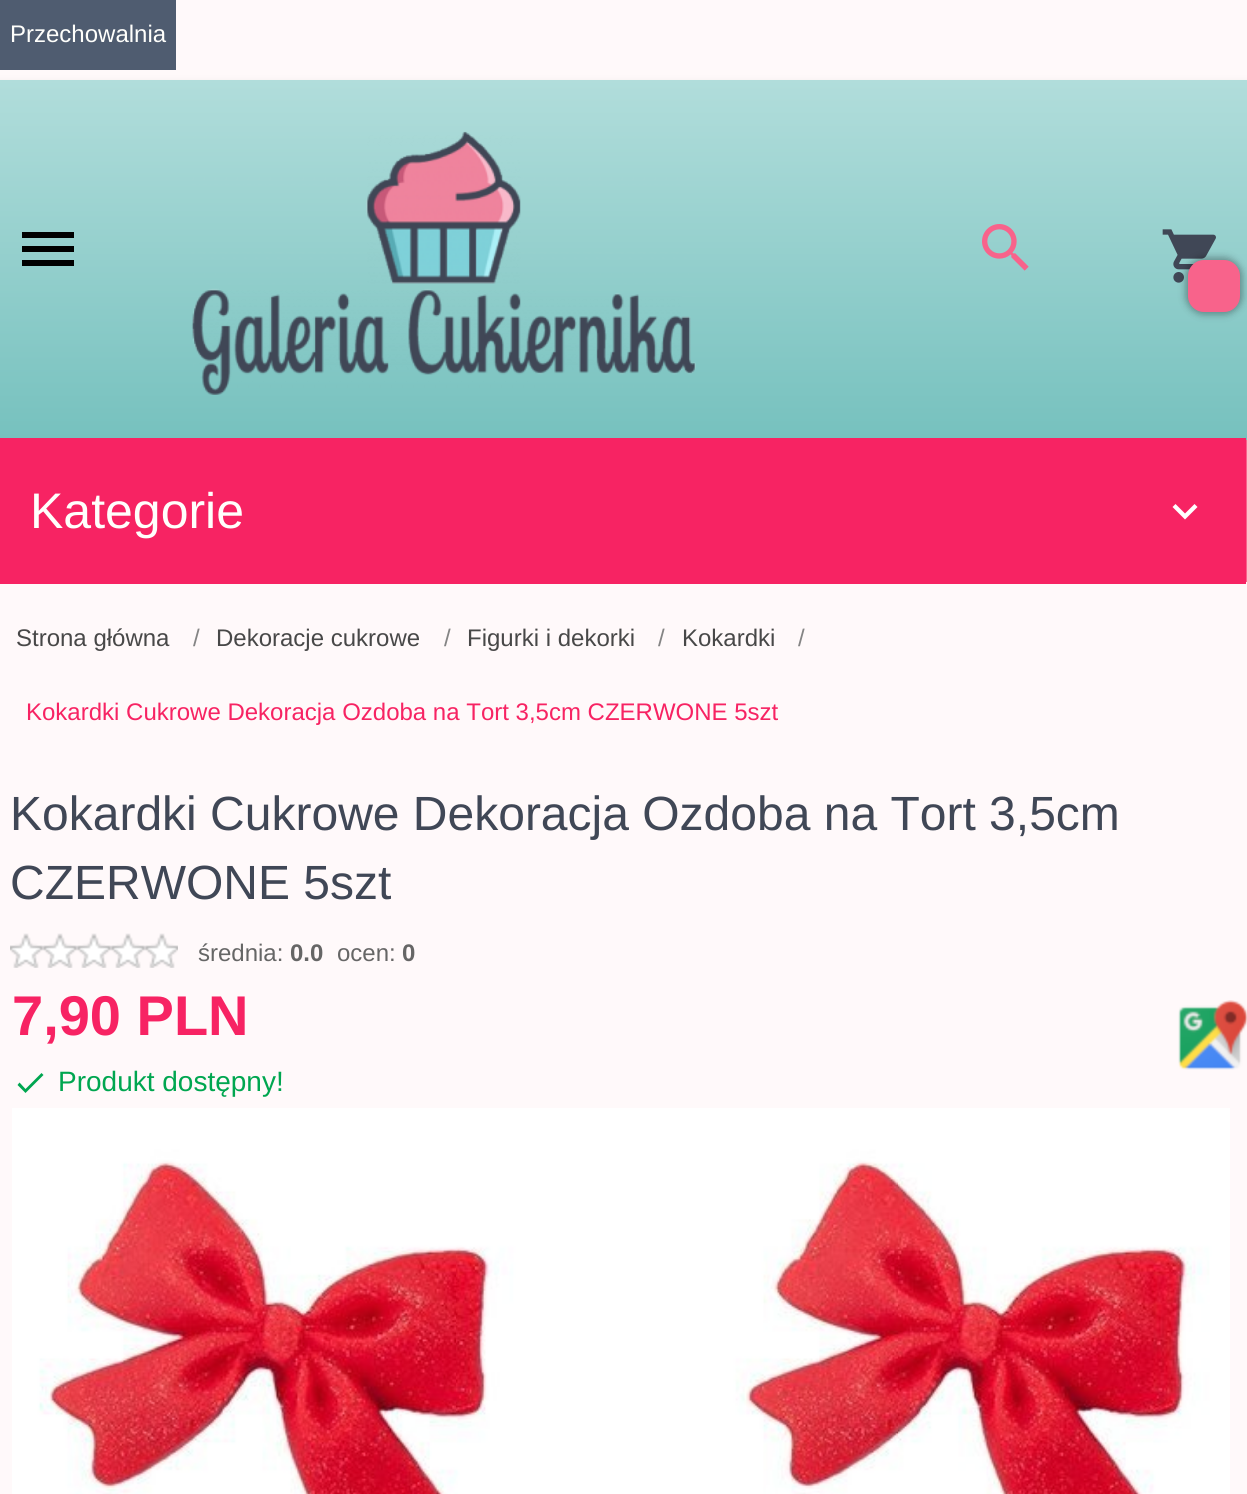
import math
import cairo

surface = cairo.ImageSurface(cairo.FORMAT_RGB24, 1247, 1494)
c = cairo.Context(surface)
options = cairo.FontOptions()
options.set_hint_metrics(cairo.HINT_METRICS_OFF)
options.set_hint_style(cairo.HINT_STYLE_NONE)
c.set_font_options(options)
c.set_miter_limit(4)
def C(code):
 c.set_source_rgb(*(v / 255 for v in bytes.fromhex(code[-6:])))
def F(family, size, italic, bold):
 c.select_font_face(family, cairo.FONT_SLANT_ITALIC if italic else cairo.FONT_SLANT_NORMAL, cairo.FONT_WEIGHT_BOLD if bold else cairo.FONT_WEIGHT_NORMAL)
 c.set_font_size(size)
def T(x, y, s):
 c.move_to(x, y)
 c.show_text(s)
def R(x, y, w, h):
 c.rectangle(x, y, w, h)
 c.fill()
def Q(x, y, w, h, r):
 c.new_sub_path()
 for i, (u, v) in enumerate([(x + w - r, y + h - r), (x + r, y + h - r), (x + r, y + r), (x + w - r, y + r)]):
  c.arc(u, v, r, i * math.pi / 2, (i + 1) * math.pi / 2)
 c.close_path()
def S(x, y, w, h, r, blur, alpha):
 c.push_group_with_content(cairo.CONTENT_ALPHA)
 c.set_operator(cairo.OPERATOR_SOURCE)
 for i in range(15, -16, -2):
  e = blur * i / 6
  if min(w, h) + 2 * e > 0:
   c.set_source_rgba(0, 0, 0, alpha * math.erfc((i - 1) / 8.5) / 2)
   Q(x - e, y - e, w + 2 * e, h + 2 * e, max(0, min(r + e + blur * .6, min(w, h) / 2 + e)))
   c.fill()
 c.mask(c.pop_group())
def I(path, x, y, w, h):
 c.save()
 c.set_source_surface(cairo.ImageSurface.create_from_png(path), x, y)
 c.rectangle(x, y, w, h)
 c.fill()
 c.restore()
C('fff9fa')
c.paint()
C('4f5c70')
R(0,0,176,70)
F('Liberation Sans',24,0,0)
C('fffffc')
T(10,42,'Przechowalnia')
C('cccccc')
S(0,86,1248,360,0,5,1)
gradient = cairo.LinearGradient(624,80,624,440)
gradient.add_color_stop_rgba(0,0.694,0.867,0.859,1)
gradient.add_color_stop_rgba(1,0.463,0.757,0.745,1)
c.set_source(gradient)
R(0,80,1247,360)
C('000000')
c.new_path()
c.move_to(22,232)
c.line_to(74,232)
c.line_to(74,238)
c.line_to(22,238)
c.close_path()
c.move_to(22,246)
c.line_to(74,246)
c.line_to(74,252)
c.line_to(22,252)
c.close_path()
c.move_to(22,260)
c.line_to(74,260)
c.line_to(74,266)
c.line_to(22,266)
c.close_path()
c.fill()
I('1.png',191,131,505,264)
I('2.png',982,224,47,47)
I('3.png',1162,229,54,54)
C('000000')
S(1186,258,56,56,18,4,.36)
C('f8638b')
Q(1188,260,52,52,16)
c.fill()
R(1246,440,1,142)
C('f72363')
R(0,438,1246,146)
F('Liberation Sans',50,0,0)
C('fffffc')
T(30,528,'Kategorie')
C('ffffff')
c.new_path()
c.move_to(1175.5,504)
c.line_to(1185,513.5)
c.line_to(1194.5,504)
c.line_to(1197.5,507)
c.line_to(1185,519.5)
c.line_to(1172.5,507)
c.close_path()
c.fill()
F('Liberation Sans',24,0,0)
C('484848')
T(16,646,'Strona główna')
C('858585')
T(193,646,'/')
C('484848')
T(216,646,'Dekoracje cukrowe')
C('858585')
T(444,646,'/')
C('484848')
T(467,646,'Figurki i dekorki')
C('858585')
T(658,646,'/')
C('484848')
T(682,646,'Kokardki')
C('858585')
T(798,646,'/')
C('f72363')
T(26,720,'Kokardki Cukrowe Dekoracja Ozdoba na Tort 3,5cm CZERWONE 5szt')
F('Liberation Sans',48,0,0)
C('404756')
T(10,830,'Kokardki Cukrowe Dekoracja Ozdoba na Tort 3,5cm')
T(10,899,'CZERWONE 5szt')
I('4.png',10,933,168,35)
F('Liberation Sans',24,0,0)
C('666666')
T(198,961,'średnia:')
F('Liberation Sans',24,0,1)
T(290,961,'0.0')
F('Liberation Sans',24,0,0)
T(337,961,'ocen:')
F('Liberation Sans',24,0,1)
T(402,961,'0')
F('Liberation Sans',56,0,1)
C('f72363')
T(12,1035,'7,90 PLN')
C('00a650')
c.new_path()
c.move_to(43.5,1075)
c.line_to(25.5,1093)
c.line_to(17.5,1085)
c.line_to(19.5,1082.5)
c.line_to(25.5,1089)
c.line_to(41.5,1073)
c.close_path()
c.fill()
F('Liberation Sans',28,0,0)
T(58,1091,'Produkt dostępny!')
I('5.png',12,1108,1218,386)
I('6.png',1178,1000,69,70)
surface.write_to_png('o.png')
